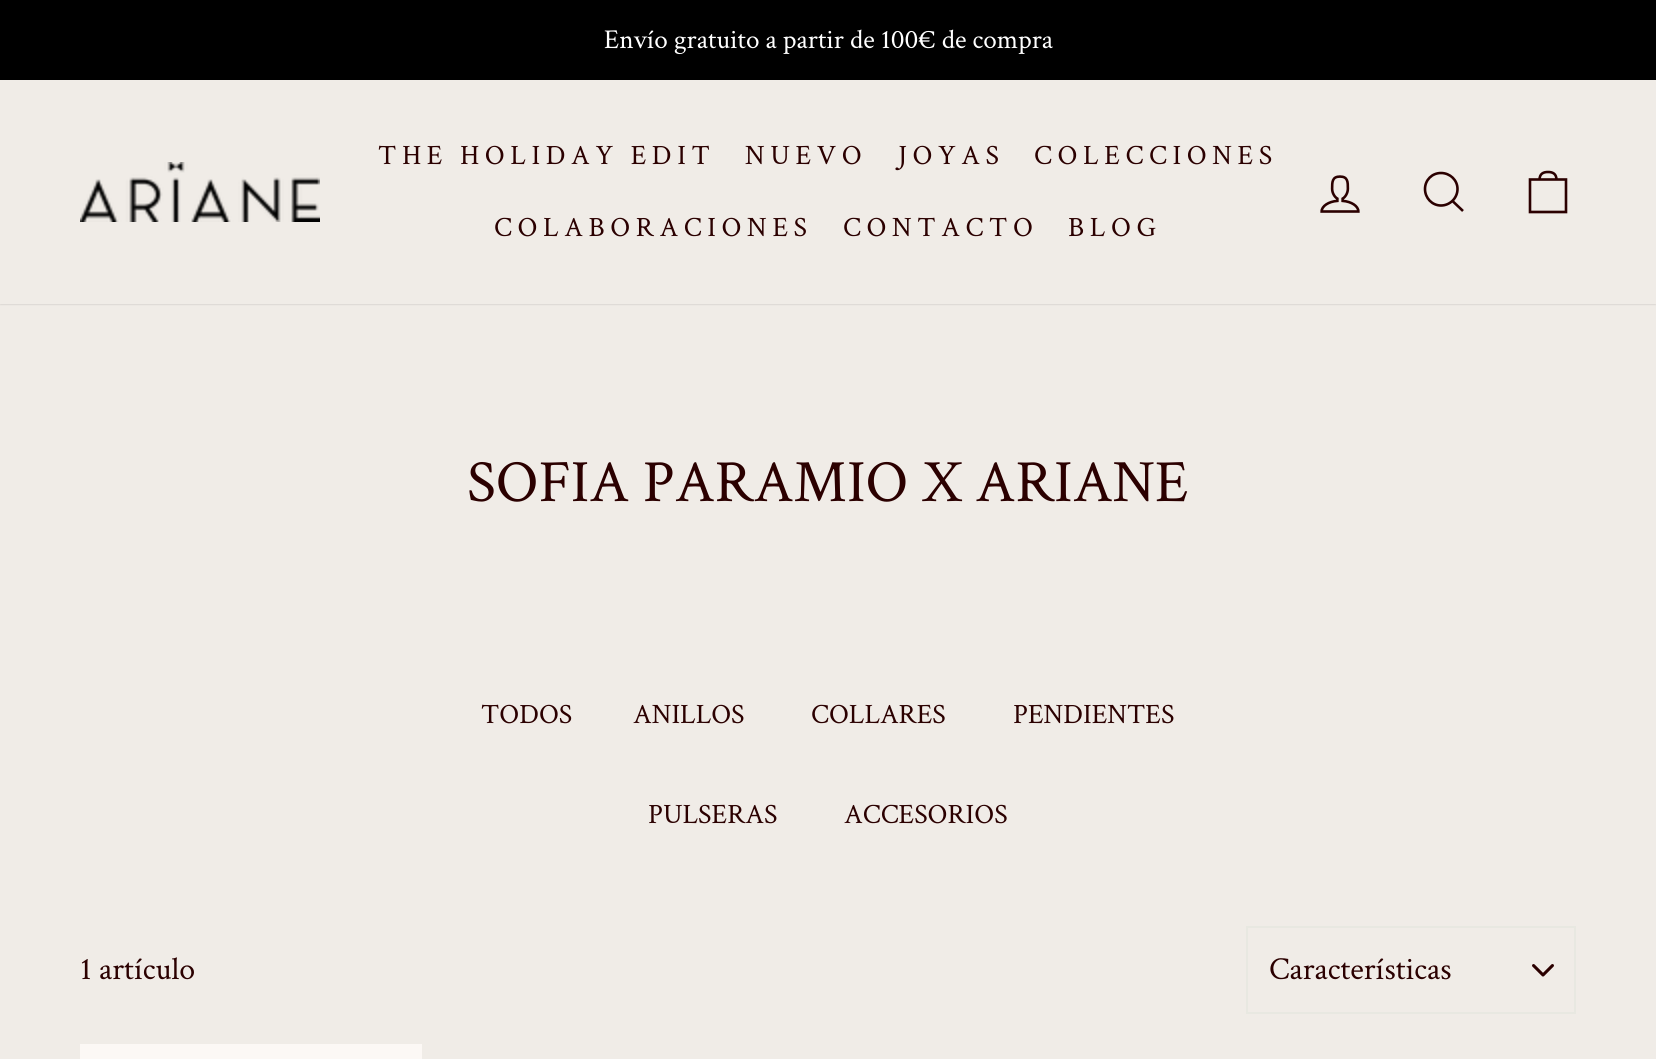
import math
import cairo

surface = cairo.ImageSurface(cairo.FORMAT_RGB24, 1656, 1059)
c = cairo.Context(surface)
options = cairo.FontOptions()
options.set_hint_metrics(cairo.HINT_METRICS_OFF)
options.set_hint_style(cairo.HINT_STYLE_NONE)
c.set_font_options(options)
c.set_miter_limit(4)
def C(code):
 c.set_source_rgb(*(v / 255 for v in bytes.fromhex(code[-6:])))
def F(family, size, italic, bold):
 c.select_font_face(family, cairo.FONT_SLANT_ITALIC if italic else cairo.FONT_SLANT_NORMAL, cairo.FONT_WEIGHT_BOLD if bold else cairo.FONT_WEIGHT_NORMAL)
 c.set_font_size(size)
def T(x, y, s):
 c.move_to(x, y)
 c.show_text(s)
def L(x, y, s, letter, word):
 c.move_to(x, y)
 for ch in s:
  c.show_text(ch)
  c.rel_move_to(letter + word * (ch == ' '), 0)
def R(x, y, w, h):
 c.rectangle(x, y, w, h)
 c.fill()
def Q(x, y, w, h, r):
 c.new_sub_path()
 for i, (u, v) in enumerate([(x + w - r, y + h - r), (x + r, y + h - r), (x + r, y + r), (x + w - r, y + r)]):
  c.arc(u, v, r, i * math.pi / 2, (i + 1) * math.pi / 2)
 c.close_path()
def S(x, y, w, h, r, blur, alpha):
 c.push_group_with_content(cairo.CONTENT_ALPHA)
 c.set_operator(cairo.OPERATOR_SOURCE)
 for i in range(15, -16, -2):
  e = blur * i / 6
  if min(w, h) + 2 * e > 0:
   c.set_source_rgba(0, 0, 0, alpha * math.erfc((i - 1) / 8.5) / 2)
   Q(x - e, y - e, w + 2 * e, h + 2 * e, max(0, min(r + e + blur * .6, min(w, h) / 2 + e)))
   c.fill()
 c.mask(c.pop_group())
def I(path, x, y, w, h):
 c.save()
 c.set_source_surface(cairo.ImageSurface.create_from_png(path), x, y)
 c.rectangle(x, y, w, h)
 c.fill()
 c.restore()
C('f0ece7')
c.paint()
C('000000')
R(0,0,1656,80)
F('Crimson Text',27.25,0,0)
C('ffffff')
T(604,48,'Envío gratuito a partir de 100€ de compra')
c.save()
c.set_fill_rule(cairo.FILL_RULE_EVEN_ODD)
c.new_path()
c.move_to(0,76)
c.line_to(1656,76)
c.line_to(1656,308)
c.line_to(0,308)
c.close_path()
c.move_to(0,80)
c.line_to(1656,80)
c.line_to(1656,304)
c.line_to(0,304)
c.close_path()
c.clip()
C('000000')
S(0,80,1656,224,0,1,.2)
c.restore()
I('1.png',80,162,240,60)
F('Crimson Text',28,0,0)
C('2b0000')
L(378,164,'THE HOLIDAY EDIT',5.6,0)
L(745,164,'NUEVO',5.6,0)
L(898,164,'JOYAS',5.6,0)
L(1034,164,'COLECCIONES',5.6,0)
L(494,236,'COLABORACIONES',5.6,0)
L(843,236,'CONTACTO',5.6,0)
L(1068,236,'BLOG',5.6,0)
I('2.png',1320,175,40,38)
c.new_path()
c.move_to(1457.5,189)
c.curve_to(1457.5,198,1450,205.5,1441,205.5)
c.curve_to(1432,205.5,1425,198,1425,189)
c.curve_to(1425,180,1432,173,1441,173)
c.curve_to(1450,173,1457.5,180,1457.5,189)
c.close_path()
c.move_to(1463,211)
c.line_to(1452.5,201)
c.set_line_width(2.6)
c.stroke()
c.new_path()
c.move_to(1530,179.5)
c.line_to(1566,179.5)
c.line_to(1566,212)
c.line_to(1530,212)
c.close_path()
c.move_to(1539.5,180)
c.curve_to(1539.5,173.5,1543.5,172,1548,172)
c.curve_to(1552.5,172,1556.5,173.5,1556.5,180)
c.stroke()
F('Crimson Text',60,0,0)
T(467,501,'SOFIA PARAMIO X ARIANE')
F('Crimson Text',28,0,0)
T(481,723,'TODOS')
T(633,723,'ANILLOS')
T(811,723,'COLLARES')
T(1013,723,'PENDIENTES')
T(648,823,'PULSERAS')
T(844,823,'ACCESORIOS')
F('Crimson Text',32,0,0)
T(80,979,'1 artículo')
I('3.png',1532,964,22,13)
c.rectangle(1247,927,328,86)
C('e8e8e1')
c.set_line_width(2)
c.stroke()
C('2b0000')
T(1269,979,'Características')
C('fcf8f5')
R(80,1044,342,15)
surface.write_to_png('o.png')
